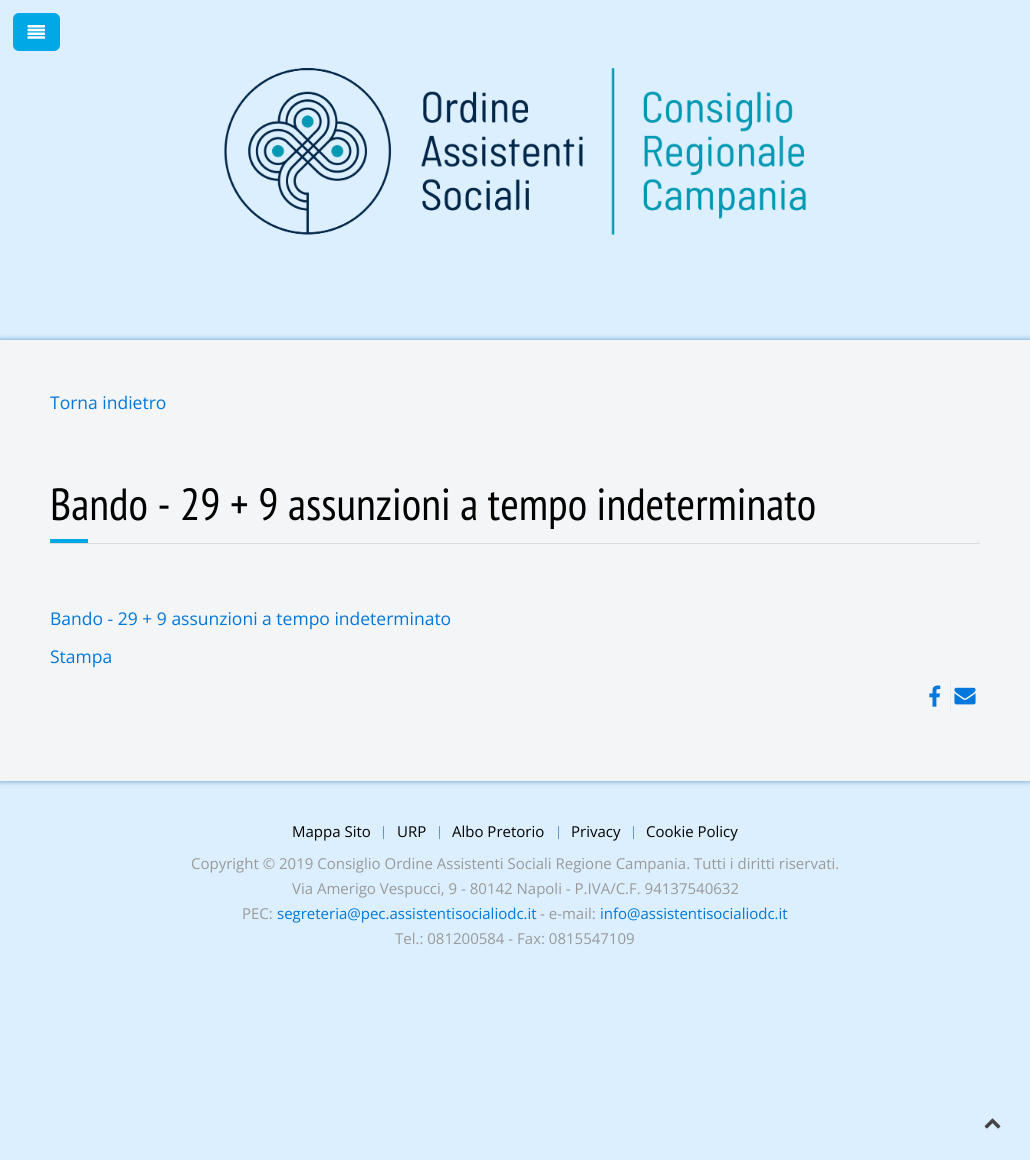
import math
import cairo

surface = cairo.ImageSurface(cairo.FORMAT_RGB24, 1030, 1160)
c = cairo.Context(surface)
options = cairo.FontOptions()
options.set_hint_metrics(cairo.HINT_METRICS_OFF)
options.set_hint_style(cairo.HINT_STYLE_NONE)
c.set_font_options(options)
c.set_miter_limit(4)
def C(code):
 c.set_source_rgb(*(v / 255 for v in bytes.fromhex(code[-6:])))
def F(family, size, italic, bold):
 c.select_font_face(family, cairo.FONT_SLANT_ITALIC if italic else cairo.FONT_SLANT_NORMAL, cairo.FONT_WEIGHT_BOLD if bold else cairo.FONT_WEIGHT_NORMAL)
 c.set_font_size(size)
def T(x, y, s):
 c.move_to(x, y)
 c.show_text(s)
def R(x, y, w, h):
 c.rectangle(x, y, w, h)
 c.fill()
def Q(x, y, w, h, r):
 c.new_sub_path()
 for i, (u, v) in enumerate([(x + w - r, y + h - r), (x + r, y + h - r), (x + r, y + r), (x + w - r, y + r)]):
  c.arc(u, v, r, i * math.pi / 2, (i + 1) * math.pi / 2)
 c.close_path()
def S(x, y, w, h, r, blur, alpha):
 c.push_group_with_content(cairo.CONTENT_ALPHA)
 c.set_operator(cairo.OPERATOR_SOURCE)
 for i in range(15, -16, -2):
  e = blur * i / 6
  if min(w, h) + 2 * e > 0:
   c.set_source_rgba(0, 0, 0, alpha * math.erfc((i - 1) / 8.5) / 2)
   Q(x - e, y - e, w + 2 * e, h + 2 * e, max(0, min(r + e + blur * .6, min(w, h) / 2 + e)))
   c.fill()
 c.mask(c.pop_group())
def I(path, x, y, w, h):
 c.save()
 c.set_source_surface(cairo.ImageSurface.create_from_png(path), x, y)
 c.rectangle(x, y, w, h)
 c.fill()
 c.restore()
C('dcefff')
c.paint()
C('00a8e6')
Q(13,13,47,38,6)
c.fill()
I('1.png',27,25,18,14)
I('2.png',224,68,582,167)
C('005599')
S(0,340,1030,441,0,3,.55)
C('f3f5f6')
R(0,340,1030,441)
F('Open Sans',17.5,0,0)
C('0077dd')
T(50,409,'Torna indietro')
C('dbdddd')
R(50,543,930,1)
F('PT Sans Narrow',45,0,0)
C('000000')
T(50,520,'Bando - 29 + 9 assunzioni a tempo indeterminato')
C('00a8e6')
R(50,539,38,4)
F('Open Sans',17.5,0,0)
C('0077dd')
T(50,625,'Bando - 29 + 9 assunzioni a tempo indeterminato')
T(50,663,'Stampa')
I('3.png',929,685,12,22)
C('eaebec')
c.new_path()
c.move_to(951,680)
c.line_to(950,679)
c.line_to(950,714)
c.line_to(951,712.5)
c.close_path()
c.fill()
I('4.png',954,687,22,18)
F('Open Sans',15,0,0)
C('000000')
T(292,837,'Mappa Sito')
C('639ac7')
R(383,826,1,13)
C('000000')
T(397,837,'URP')
C('639ac7')
R(439,826,1,13)
C('000000')
T(452,837,'Albo Pretorio')
C('639ac7')
R(558,826,1,13)
C('000000')
T(571,837,'Privacy')
C('639ac7')
R(633,826,1,13)
C('000000')
T(646,837,'Cookie Policy')
C('999999')
T(191,869,'Copyright © 2019 Consiglio Ordine Assistenti Sociali Regione Campania. Tutti i diritti riservati.')
T(292,894,'Via Amerigo Vespucci, 9 - 80142 Napoli - P.IVA/C.F. 94137540632')
T(242,919,'PEC:')
C('0077dd')
T(277,919,'segreteria@pec.assistentisocialiodc.it')
C('999999')
T(540,919,'- e-mail:')
C('0077dd')
T(600,919,'info@assistentisocialiodc.it')
C('999999')
T(395,944,'Tel.: 081200584 - Fax: 0815547109')
I('5.png',984,1118,17,11)
surface.write_to_png('o.png')
